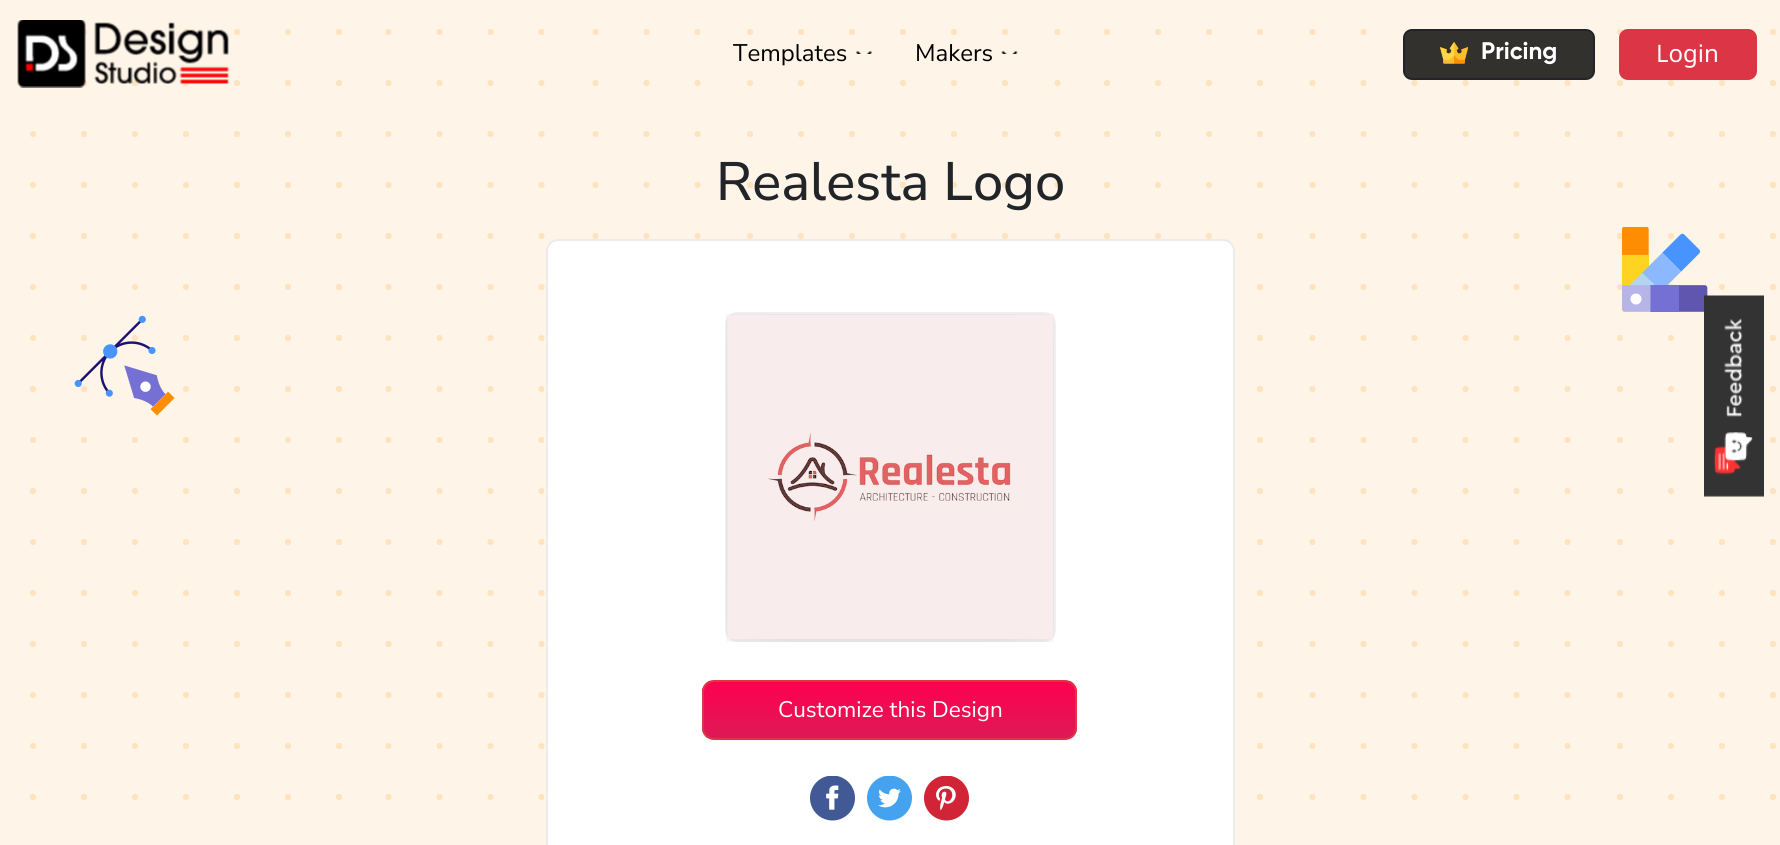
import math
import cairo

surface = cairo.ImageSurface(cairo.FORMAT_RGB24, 1780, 845)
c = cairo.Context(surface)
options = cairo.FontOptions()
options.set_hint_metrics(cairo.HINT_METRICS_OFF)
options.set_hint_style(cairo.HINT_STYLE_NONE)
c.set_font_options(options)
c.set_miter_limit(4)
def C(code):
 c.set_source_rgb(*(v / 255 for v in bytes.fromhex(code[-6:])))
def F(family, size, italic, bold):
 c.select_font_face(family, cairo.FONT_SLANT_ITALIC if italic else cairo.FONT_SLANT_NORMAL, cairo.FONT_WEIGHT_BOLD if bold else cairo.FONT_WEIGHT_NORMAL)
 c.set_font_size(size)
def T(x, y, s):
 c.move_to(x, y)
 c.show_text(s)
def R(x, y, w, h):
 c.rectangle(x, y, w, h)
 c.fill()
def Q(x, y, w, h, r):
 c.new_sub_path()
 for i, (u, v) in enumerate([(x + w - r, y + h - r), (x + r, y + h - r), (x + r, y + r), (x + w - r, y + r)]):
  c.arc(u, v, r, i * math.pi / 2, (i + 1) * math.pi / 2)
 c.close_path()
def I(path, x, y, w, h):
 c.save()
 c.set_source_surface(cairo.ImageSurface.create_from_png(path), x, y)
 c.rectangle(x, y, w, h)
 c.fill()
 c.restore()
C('ffffff')
c.paint()
I('5.png',0,0,1780,845)
I('1.png',17,20,212,68)
F('Nunito Sans',24,0,0)
C('000000')
T(733,61,'Templates')
I('2.png',856,51,16,3)
T(915,61,'Makers')
I('3.png',1001,50,17,4)
C('33312e')
Q(1404,30,190,49,8)
c.fill_preserve()
C('212529')
c.stroke()
I('4.png',1440,42,28,22)
F('Gilroy',24,0,1)
C('ffffff')
T(1481,59,'Pricing')
C('dc3545')
Q(1620,30,136,49,8)
c.fill_preserve()
c.stroke()
F('Noto Sans',24,0,0)
C('ffffff')
T(1656,62,'Login')
I('6.png',74,227,1634,189)
F('Nunito Sans Medium',54,0,0)
C('212529')
T(716,200,'Realesta Logo')
C('ffffff')
Q(547,240,687,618,11)
c.fill_preserve()
C('ececec')
c.stroke()
Q(726.5,313.5,328,327,10.5)
C('efefef')
c.set_line_width(3)
c.stroke()
I('7.png',726,314,328,328)
c.save()
Q(702,680,375,60,12)
c.clip()
gradient = cairo.LinearGradient(890,681,890,738)
gradient.add_color_stop_rgba(0,1,0,0.31,1)
gradient.add_color_stop_rgba(1,0.867,0.098,0.337,1)
c.set_source(gradient)
R(702,681,375,57)
c.restore()
Q(703,681,373,58,11)
C('dc3545')
c.set_line_width(2)
c.stroke()
F('Nunito Sans',22.5,0,0)
C('ffffff')
T(778,717,'Customize this Design')
I('8.png',810,776,45,45)
I('9.png',867,776,45,45)
I('10.png',924,776,45,45)
I('11.png',1704,295,60,202)
surface.write_to_png('o.png')
